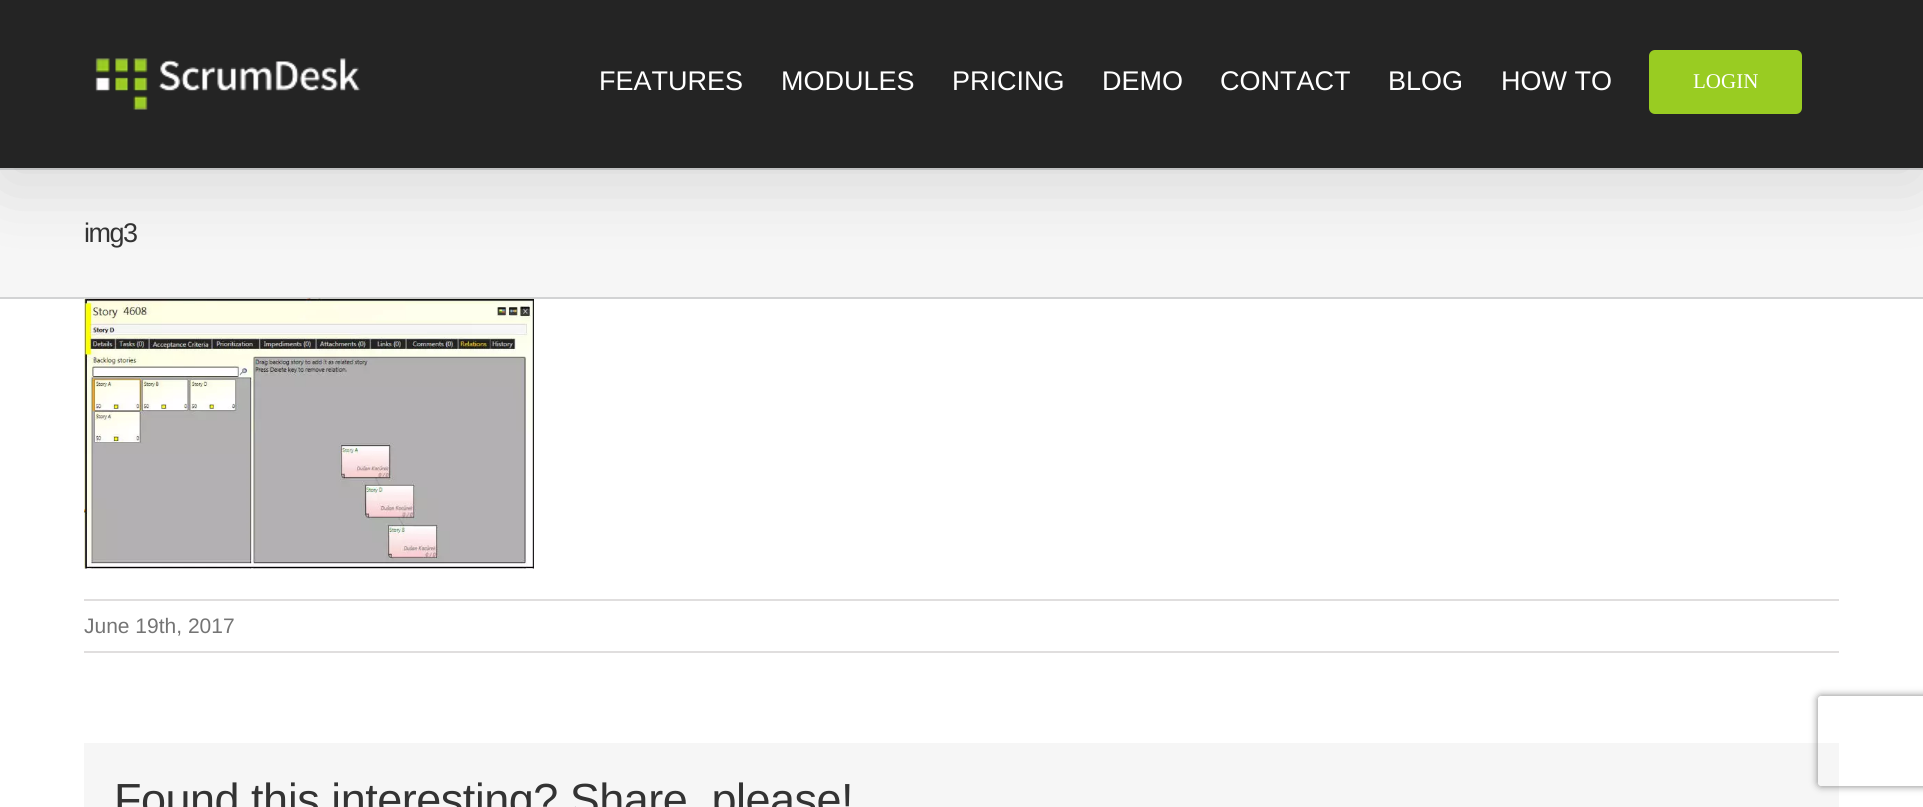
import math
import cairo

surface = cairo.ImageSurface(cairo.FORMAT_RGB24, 1923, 807)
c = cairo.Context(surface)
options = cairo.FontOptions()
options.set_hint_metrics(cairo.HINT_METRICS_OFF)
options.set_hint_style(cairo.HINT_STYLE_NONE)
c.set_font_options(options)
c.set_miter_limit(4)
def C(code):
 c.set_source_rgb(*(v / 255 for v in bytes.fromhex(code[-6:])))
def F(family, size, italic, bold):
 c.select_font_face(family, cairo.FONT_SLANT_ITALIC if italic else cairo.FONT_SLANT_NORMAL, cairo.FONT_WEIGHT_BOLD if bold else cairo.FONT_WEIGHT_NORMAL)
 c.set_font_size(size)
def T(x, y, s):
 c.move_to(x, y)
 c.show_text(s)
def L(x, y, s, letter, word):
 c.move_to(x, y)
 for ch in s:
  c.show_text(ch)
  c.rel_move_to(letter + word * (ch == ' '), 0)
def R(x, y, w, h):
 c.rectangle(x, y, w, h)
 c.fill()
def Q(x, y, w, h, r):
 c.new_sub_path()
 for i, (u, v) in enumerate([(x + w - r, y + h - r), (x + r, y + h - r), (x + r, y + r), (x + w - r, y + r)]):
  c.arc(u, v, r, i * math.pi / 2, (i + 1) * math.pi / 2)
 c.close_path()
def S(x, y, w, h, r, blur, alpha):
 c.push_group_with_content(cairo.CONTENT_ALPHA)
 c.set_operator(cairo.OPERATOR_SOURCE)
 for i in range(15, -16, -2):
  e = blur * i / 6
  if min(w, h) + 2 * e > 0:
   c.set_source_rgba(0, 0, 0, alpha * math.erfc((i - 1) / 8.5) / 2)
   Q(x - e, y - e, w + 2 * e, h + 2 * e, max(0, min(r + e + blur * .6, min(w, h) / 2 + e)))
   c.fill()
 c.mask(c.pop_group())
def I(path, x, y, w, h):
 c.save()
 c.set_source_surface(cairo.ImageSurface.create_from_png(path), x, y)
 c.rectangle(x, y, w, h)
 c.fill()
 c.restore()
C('ffffff')
c.paint()
C('f6f6f6')
R(0,170,1923,127)
C('d2d3d4')
R(0,168,1923,2)
C('000000')
S(3,18,1917,162,0,37.5,.14)
C('242424')
R(0,0,1923,168)
I('1.png',95,58,266,52)
F('Liberation Sans',27,0,0)
C('ffffff')
T(599,90,'FEATURES')
T(781,90,'MODULES')
T(952,90,'PRICING')
T(1102,90,'DEMO')
T(1220,90,'CONTACT')
T(1388,90,'BLOG')
T(1501,90,'HOW TO')
C('99cc22')
Q(1649,50,153,64,6)
c.fill()
F('Liberation Serif',21,0,0)
C('ffffff')
T(1693,88,'LOGIN')
C('d2d3d4')
R(0,297,1923,2)
F('Liberation Sans',27,0,0)
C('333333')
L(84,242,'img3',-1.5,0)
I('2.png',84,298,450,271)
C('e0dede')
R(84,599,1755,2)
R(84,651,1755,2)
F('Liberation Sans',21,0,0)
C('747474')
T(84,633,'June 19th, 2017')
C('f6f6f6')
R(84,743,1755,64)
F('Liberation Sans',45,0,0)
C('333333')
L(114,815,'Found this interesting? Share, please!',-.5,0)
c.save()
c.set_fill_rule(cairo.FILL_RULE_EVEN_ODD)
c.new_path()
c.move_to(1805,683)
c.line_to(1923,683)
c.line_to(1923,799)
c.line_to(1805,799)
c.close_path()
c.move_to(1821,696)
c.line_to(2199,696)
c.curve_to(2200.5,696,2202,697.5,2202,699)
c.line_to(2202,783)
c.curve_to(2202,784.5,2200.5,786,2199,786)
c.line_to(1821,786)
c.curve_to(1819.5,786,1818,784.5,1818,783)
c.line_to(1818,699)
c.curve_to(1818,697.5,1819.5,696,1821,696)
c.close_path()
c.clip()
C('808080')
S(1818,696,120,90,3,4,1)
c.restore()
surface.write_to_png('o.png')
